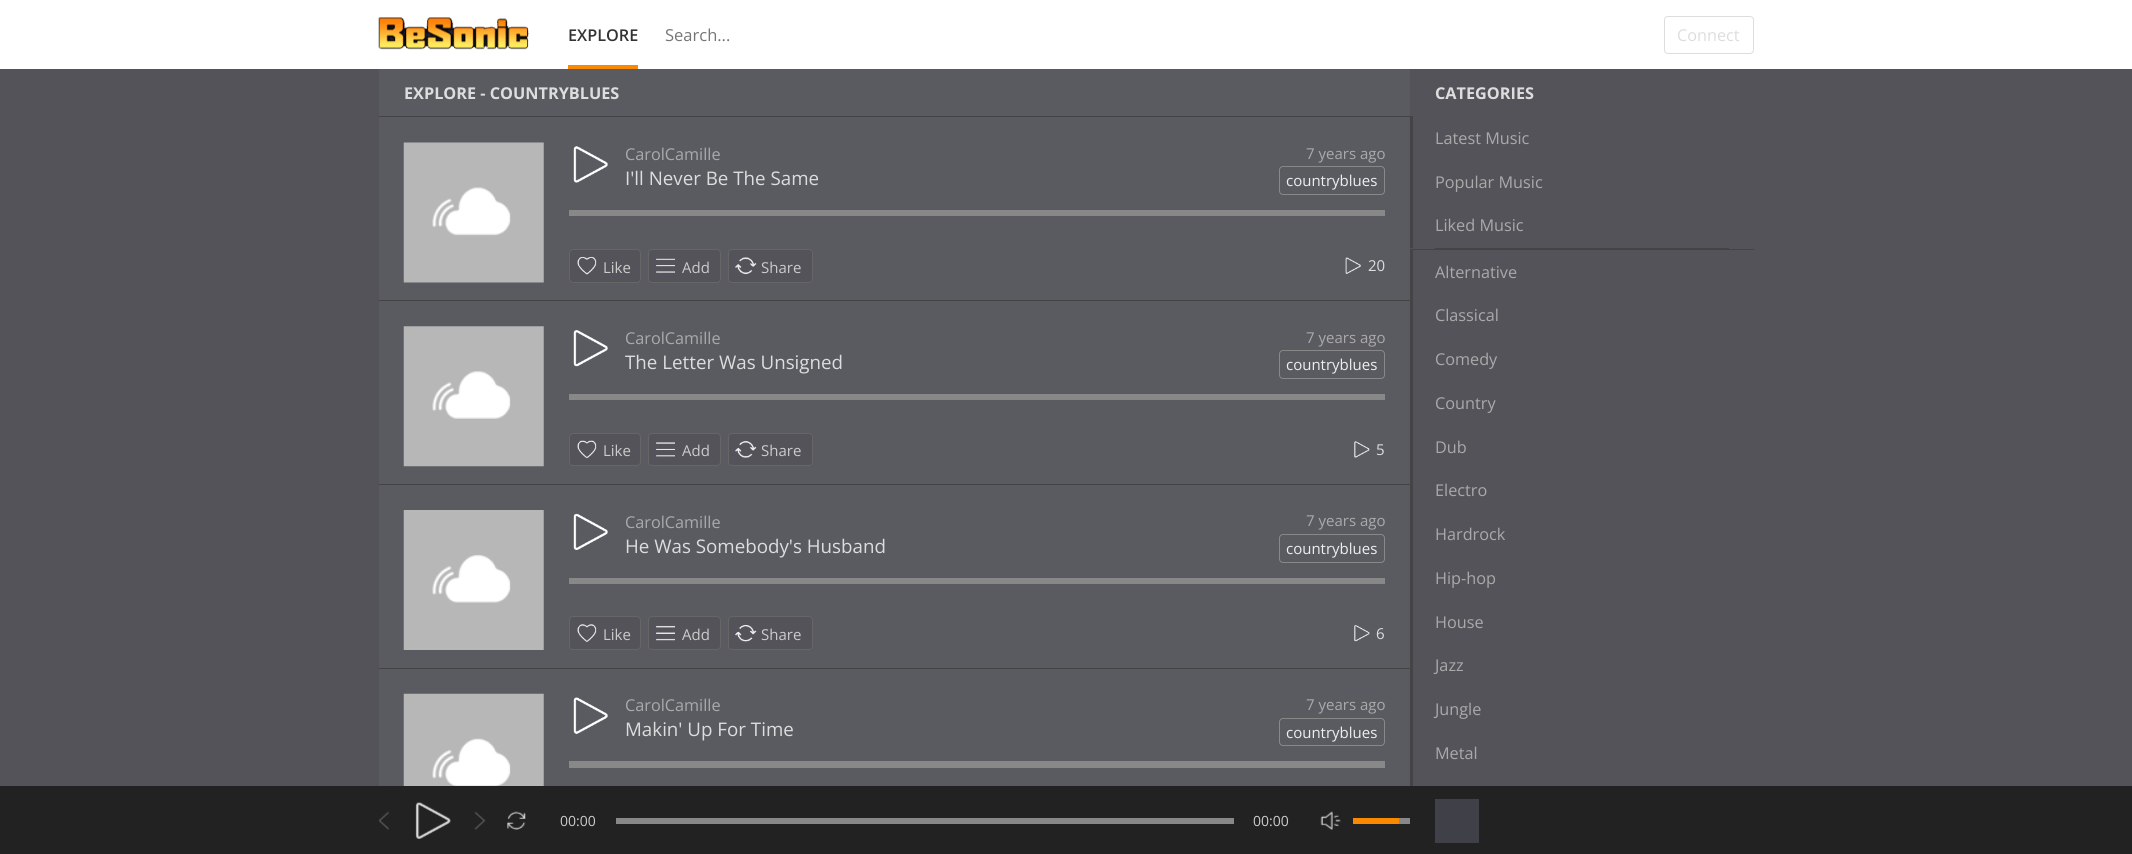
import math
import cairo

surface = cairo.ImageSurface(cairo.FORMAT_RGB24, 2132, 854)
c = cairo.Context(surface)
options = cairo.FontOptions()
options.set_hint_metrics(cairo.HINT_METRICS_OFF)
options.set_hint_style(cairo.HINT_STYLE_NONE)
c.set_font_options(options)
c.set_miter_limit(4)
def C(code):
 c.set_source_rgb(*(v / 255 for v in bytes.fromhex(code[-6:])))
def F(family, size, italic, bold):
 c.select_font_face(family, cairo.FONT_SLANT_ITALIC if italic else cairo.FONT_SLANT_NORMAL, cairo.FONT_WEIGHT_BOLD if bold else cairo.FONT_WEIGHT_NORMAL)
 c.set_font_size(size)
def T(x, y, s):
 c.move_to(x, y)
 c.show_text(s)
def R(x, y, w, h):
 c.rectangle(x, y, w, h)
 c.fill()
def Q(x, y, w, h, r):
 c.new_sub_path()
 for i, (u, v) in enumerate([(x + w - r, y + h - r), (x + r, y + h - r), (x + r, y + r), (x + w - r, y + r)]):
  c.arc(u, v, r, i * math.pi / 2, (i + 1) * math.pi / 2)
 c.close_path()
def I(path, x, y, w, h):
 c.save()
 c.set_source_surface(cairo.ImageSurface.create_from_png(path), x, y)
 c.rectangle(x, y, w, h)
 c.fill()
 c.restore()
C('535359')
c.paint()
C('ffffff')
R(0,0,2132,69)
I('1.png',378,17,151,33)
C('f98900')
R(568,65,70,4)
F('Open Sans SemiBold',16.25,0,0)
C('333333')
T(568,41,'EXPLORE')
F('Open Sans',16.5,0,0)
C('757575')
T(665,41,'Search...')
Q(1664.5,16.5,89,37,3.5)
C('dddddd')
c.set_line_width(1)
c.stroke()
F('Open Sans',16.25,0,0)
T(1677,41,'Connect')
C('595b61')
R(379,69,1031,717)
C('444444')
R(379,116,1031,1)
F('Open Sans',16.25,0,1)
C('dddddd')
T(404,99,'EXPLORE - COUNTRYBLUES')
C('444444')
R(379,300,1031,1)
I('2.png',403,142,141,141)
I('3.png',573,146,35,37)
F('Open Sans',16.25,0,0)
C('aaaaaa')
T(625,160,'CarolCamille')
F('Open Sans',18.75,0,0)
C('dddddd')
T(625,185,'I\'ll Never Be The Same')
Q(1279.5,166.5,105,28,3.5)
C('888888')
c.stroke()
F('Open Sans',15,0,0)
C('eeeeee')
T(1286,186,'countryblues')
C('aaaaaa')
T(1306,159,'7 years ago')
C('888888')
R(569,210,816,6)
C('535359')
Q(569,249,72,34,4)
c.fill()
I('4.png',577,256,20,19)
Q(569.5,249.5,71,33,3.5)
C('666666')
c.stroke()
C('cccccc')
T(603,273,'Like')
C('535359')
Q(648,249,73,34,4)
c.fill()
I('5.png',656,258,19,15)
Q(648.5,249.5,72,33,3.5)
C('666666')
c.stroke()
C('cccccc')
T(682,273,'Add')
C('535359')
Q(728,249,85,34,4)
c.fill()
I('6.png',735,257,22,18)
Q(728.5,249.5,84,33,3.5)
C('666666')
c.stroke()
C('cccccc')
T(761,273,'Share')
I('7.png',1345,257,16,17)
C('dddddd')
T(1368,271,'20')
C('444444')
R(379,484,1031,1)
I('8.png',403,326,141,141)
I('9.png',573,330,35,37)
F('Open Sans',16.25,0,0)
C('aaaaaa')
T(625,344,'CarolCamille')
F('Open Sans',18.75,0,0)
C('dddddd')
T(625,369,'The Letter Was Unsigned')
Q(1279.5,350.5,105,28,3.5)
C('888888')
c.stroke()
F('Open Sans',15,0,0)
C('eeeeee')
T(1286,370,'countryblues')
C('aaaaaa')
T(1306,343,'7 years ago')
C('888888')
R(569,394,816,6)
C('535359')
Q(569,433,72,33,4)
c.fill()
I('10.png',577,440,20,19)
Q(569.5,433.5,71,32,3.5)
C('666666')
c.stroke()
C('cccccc')
T(603,456,'Like')
C('535359')
Q(648,433,73,33,4)
c.fill()
I('11.png',656,442,19,15)
Q(648.5,433.5,72,32,3.5)
C('666666')
c.stroke()
C('cccccc')
T(682,456,'Add')
C('535359')
Q(728,433,85,33,4)
c.fill()
I('12.png',735,441,22,17)
Q(728.5,433.5,84,32,3.5)
C('666666')
c.stroke()
C('cccccc')
T(761,456,'Share')
I('13.png',1354,441,16,17)
C('dddddd')
T(1376,455,'5')
C('444444')
R(379,668,1031,1)
I('14.png',403,510,141,140)
I('15.png',573,513,35,37)
F('Open Sans',16.25,0,0)
C('aaaaaa')
T(625,528,'CarolCamille')
F('Open Sans',18.75,0,0)
C('dddddd')
T(625,553,'He Was Somebody\'s Husband')
Q(1279.5,534.5,105,28,3.5)
C('888888')
c.stroke()
F('Open Sans',15,0,0)
C('eeeeee')
T(1286,554,'countryblues')
C('aaaaaa')
T(1306,526,'7 years ago')
C('888888')
R(569,578,816,6)
C('535359')
Q(569,616,72,34,4)
c.fill()
I('16.png',577,624,20,18)
Q(569.5,616.5,71,33,3.5)
C('666666')
c.stroke()
C('cccccc')
T(603,640,'Like')
C('535359')
Q(648,616,73,34,4)
c.fill()
I('17.png',656,625,19,16)
Q(648.5,616.5,72,33,3.5)
C('666666')
c.stroke()
C('cccccc')
T(682,640,'Add')
C('535359')
Q(728,616,85,34,4)
c.fill()
I('18.png',735,624,22,18)
Q(728.5,616.5,84,33,3.5)
C('666666')
c.stroke()
C('cccccc')
T(761,640,'Share')
I('19.png',1354,625,16,17)
C('dddddd')
T(1376,639,'6')
I('20.png',403,693,141,93)
I('21.png',573,697,35,37)
F('Open Sans',16.25,0,0)
C('aaaaaa')
T(625,711,'CarolCamille')
F('Open Sans',18.75,0,0)
C('dddddd')
T(625,736,'Makin\' Up For Time')
Q(1279.5,718.5,105,27,3.5)
C('888888')
c.stroke()
F('Open Sans',15,0,0)
C('eeeeee')
T(1286,738,'countryblues')
C('aaaaaa')
T(1306,710,'7 years ago')
C('888888')
R(569,761,816,7)
F('Open Sans',16.25,0,1)
C('dddddd')
T(1435,99,'CATEGORIES')
C('444444')
R(1410,116,3,132)
F('Open Sans',16.25,0,0)
C('aaaaaa')
T(1435,144,'Latest Music')
T(1435,188,'Popular Music')
T(1435,231,'Liked Music')
C('444444')
R(1410,249,344,1)
R(1435,248,294,1)
R(1410,250,3,536)
C('aaaaaa')
T(1435,278,'Alternative')
T(1435,321,'Classical')
T(1435,365,'Comedy')
T(1435,409,'Country')
T(1435,453,'Dub')
T(1435,496,'Electro')
T(1435,540,'Hardrock')
T(1435,584,'Hip-hop')
T(1435,628,'House')
T(1435,671,'Jazz')
T(1435,715,'Jungle')
T(1435,759,'Metal')
C('222222')
R(0,786,2132,68)
I('22.png',379,811,10,19)
I('23.png',415,802,36,37)
I('24.png',474,811,12,19)
I('25.png',507,811,19,19)
F('Open Sans',14,0,0)
C('cccccc')
T(560,826,'00:00')
C('888888')
R(616,818,618,6)
C('cccccc')
T(1253,826,'00:00')
I('26.png',1320,811,21,19)
C('888888')
R(1399,818,11,6)
C('f98900')
R(1353,818,46,6)
C('404048')
R(1435,799,44,44)
surface.write_to_png('o.png')
